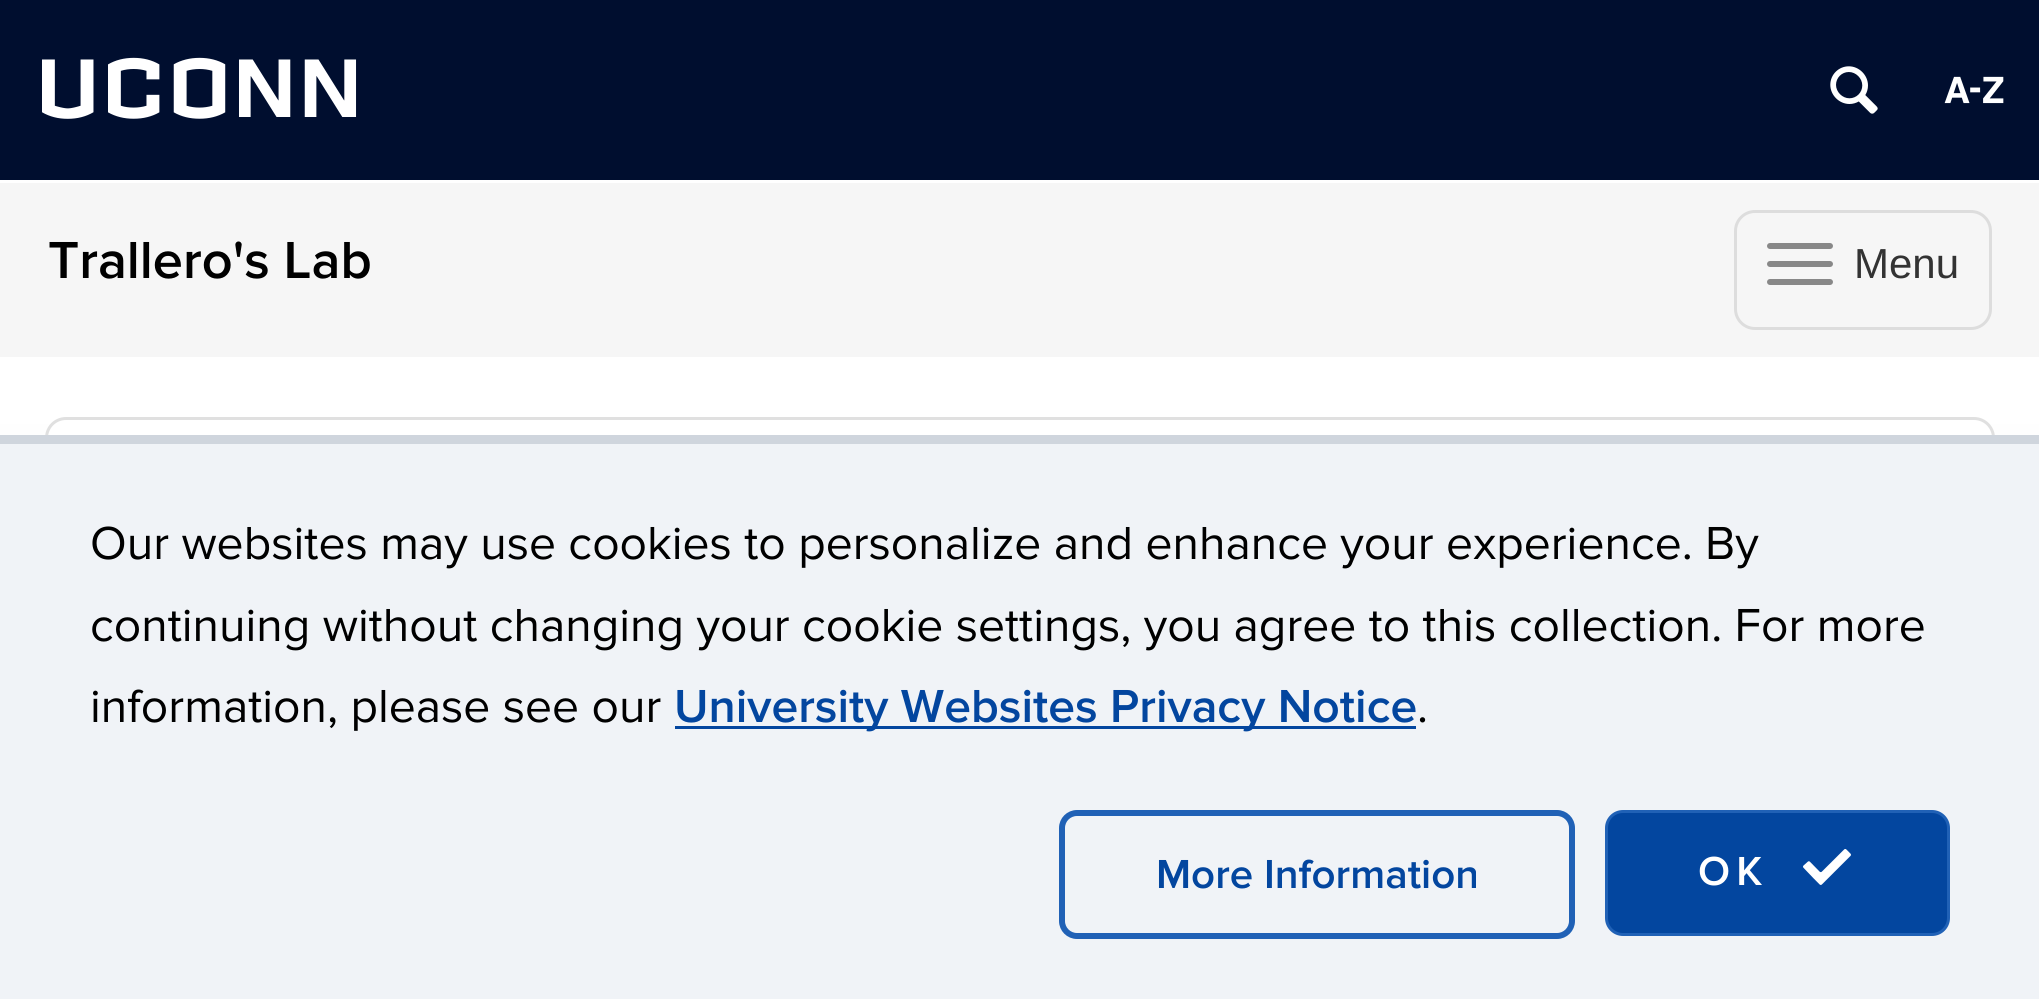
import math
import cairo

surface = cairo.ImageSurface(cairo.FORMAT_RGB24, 2039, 999)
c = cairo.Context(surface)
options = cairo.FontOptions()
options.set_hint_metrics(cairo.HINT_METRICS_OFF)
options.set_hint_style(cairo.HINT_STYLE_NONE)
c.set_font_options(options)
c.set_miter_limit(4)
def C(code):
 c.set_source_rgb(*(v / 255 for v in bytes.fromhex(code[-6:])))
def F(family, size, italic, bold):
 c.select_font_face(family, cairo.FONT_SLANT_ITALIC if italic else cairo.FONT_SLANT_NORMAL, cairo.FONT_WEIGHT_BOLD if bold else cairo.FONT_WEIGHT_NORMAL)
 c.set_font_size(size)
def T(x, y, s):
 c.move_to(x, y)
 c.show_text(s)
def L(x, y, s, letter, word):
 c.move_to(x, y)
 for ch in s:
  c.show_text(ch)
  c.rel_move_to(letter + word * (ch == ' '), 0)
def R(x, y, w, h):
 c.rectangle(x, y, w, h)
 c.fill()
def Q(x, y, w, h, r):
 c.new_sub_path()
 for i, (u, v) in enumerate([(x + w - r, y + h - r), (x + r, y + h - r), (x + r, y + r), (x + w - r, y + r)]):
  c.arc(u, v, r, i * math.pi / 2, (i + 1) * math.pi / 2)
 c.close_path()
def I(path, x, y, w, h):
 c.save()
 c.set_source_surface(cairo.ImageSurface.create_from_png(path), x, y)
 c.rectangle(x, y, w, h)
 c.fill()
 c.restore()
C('f6f6f6')
c.paint()
C('000e2f')
R(0,0,2039,180)
C('ffffff')
R(0,180,2039,3)
F('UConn',96,0,0)
L(42,117,'UCONN',9,0)
I('1.png',1830,66,48,48)
I('2.png',1944,76,60,28)
F('Proxima Nova SemiBold',54,0,0)
C('000000')
T(48,278,'Trallero\'s Lab')
Q(1735.5,211.5,255,117,19.5)
C('dddddd')
c.set_line_width(3)
c.stroke()
C('888888')
Q(1767,243,66,6,3)
c.fill()
Q(1767,261,66,6,3)
c.fill()
Q(1767,279,66,6,3)
c.fill()
F('Liberation Sans',42,0,0)
C('333333')
T(1854,278,'Menu')
gradient = cairo.LinearGradient(1020,357,1020,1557)
gradient.add_color_stop_rgba(0,1,1,1,1)
gradient.add_color_stop_rgba(1,0.965,0.965,0.965,1)
c.set_source(gradient)
R(0,357,2039,78)
C('ffffff')
Q(46.5,418.5,1947,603,19.5)
c.fill_preserve()
C('e0e0e0')
c.stroke()
C('f0f3f7')
R(0,444,2039,555)
C('cfd5dd')
R(0,435,2039,9)
F('Proxima Nova',48,0,0)
C('000000')
T(90,559,'Our websites may use cookies to personalize and enhance your experience. By')
T(90,641,'continuing without changing your cookie settings, you agree to this collection. For more')
T(90,722,'information, please see our')
C('03469f')
R(675,726,741,3)
F('Proxima Nova SemiBold',48,0,0)
T(674,722,'University Websites Privacy Notice')
F('Proxima Nova',48,0,0)
C('000000')
T(1417,722,'.')
Q(1062,813,510,123,15)
C('2061b6')
c.set_line_width(6)
c.stroke()
F('Proxima Nova SemiBold',42,0,0)
C('03469f')
T(1156,888,'More Information')
Q(1606.5,811.5,342,123,16.5)
c.fill_preserve()
C('2061b6')
c.set_line_width(3)
c.stroke()
C('ffffff')
L(1698,885,'OK',6,0)
I('3.png',1803,849,48,36)
surface.write_to_png('o.png')
